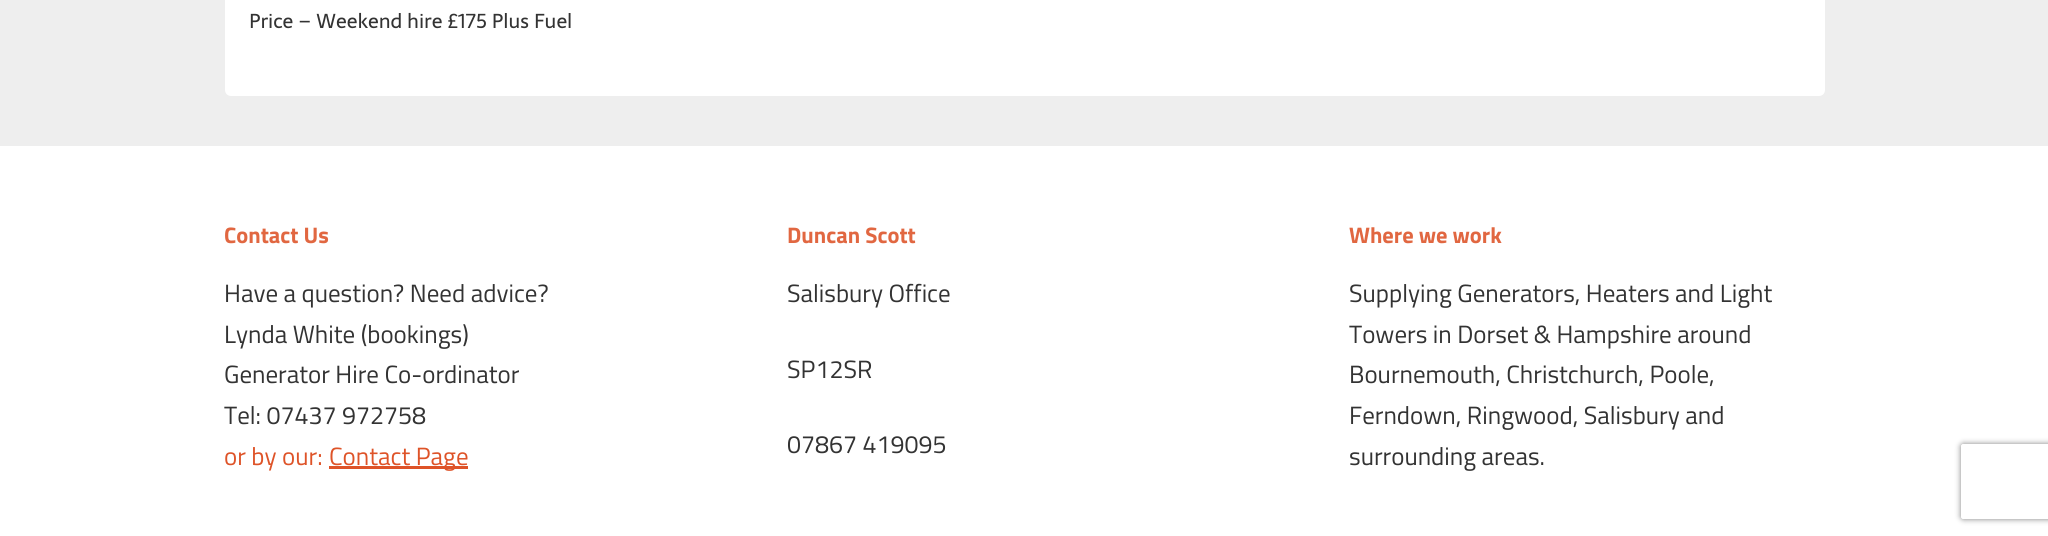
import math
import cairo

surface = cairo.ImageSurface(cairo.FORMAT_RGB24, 2048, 536)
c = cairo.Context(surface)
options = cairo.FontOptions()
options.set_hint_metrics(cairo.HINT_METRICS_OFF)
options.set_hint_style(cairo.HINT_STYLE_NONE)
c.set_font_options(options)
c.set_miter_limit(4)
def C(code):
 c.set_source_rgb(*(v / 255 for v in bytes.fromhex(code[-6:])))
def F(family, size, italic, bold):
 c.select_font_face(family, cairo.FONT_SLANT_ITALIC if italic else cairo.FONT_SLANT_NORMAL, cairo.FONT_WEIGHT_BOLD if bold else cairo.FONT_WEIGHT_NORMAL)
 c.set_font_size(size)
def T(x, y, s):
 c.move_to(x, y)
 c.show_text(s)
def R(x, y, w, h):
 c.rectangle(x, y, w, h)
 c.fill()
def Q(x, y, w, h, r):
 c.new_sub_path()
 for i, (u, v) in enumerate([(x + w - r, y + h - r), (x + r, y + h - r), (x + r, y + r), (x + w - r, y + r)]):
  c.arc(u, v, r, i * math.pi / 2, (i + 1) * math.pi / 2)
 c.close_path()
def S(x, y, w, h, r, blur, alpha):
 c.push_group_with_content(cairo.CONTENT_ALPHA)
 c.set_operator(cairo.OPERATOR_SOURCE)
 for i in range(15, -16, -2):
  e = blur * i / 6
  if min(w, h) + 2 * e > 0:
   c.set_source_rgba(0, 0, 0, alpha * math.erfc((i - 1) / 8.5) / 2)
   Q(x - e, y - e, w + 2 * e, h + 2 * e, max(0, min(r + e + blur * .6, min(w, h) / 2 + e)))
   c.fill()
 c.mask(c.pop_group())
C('eeeeee')
c.paint()
C('ffffff')
Q(225,-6,1600,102,6)
c.fill()
F('Sarala',20,0,0)
C('333333')
T(249,28,'Price – Weekend hire £175 Plus Fuel')
C('ffffff')
R(0,146,2048,390)
F('Titillium Web',22.5,0,1)
C('e16741')
T(224,243,'Contact Us')
F('Titillium Web',25,0,0)
C('333333')
T(224,302,'Have a question? Need advice?')
T(224,343,'Lynda White (bookings)')
T(224,383,'Generator Hire Co-ordinator')
T(224,424,'Tel: 07437 972758')
C('de5328')
T(224,465,'or by our:')
R(329,466,139,3)
T(329,465,'Contact Page')
F('Titillium Web',22.5,0,1)
C('e16741')
T(787,243,'Duncan Scott')
F('Titillium Web',25,0,0)
C('333333')
T(787,302,'Salisbury Office')
T(787,378,'SP12SR')
T(787,453,'07867 419095')
F('Titillium Web',22.5,0,1)
C('e16741')
T(1349,243,'Where we work')
F('Titillium Web',25,0,0)
C('333333')
T(1349,302,'Supplying Generators, Heaters and Light')
T(1349,343,'Towers in Dorset & Hampshire around')
T(1349,383,'Bournemouth, Christchurch, Poole,')
T(1349,424,'Ferndown, Ringwood, Salisbury and')
T(1349,465,'surrounding areas.')
c.save()
c.set_fill_rule(cairo.FILL_RULE_EVEN_ODD)
c.new_path()
c.move_to(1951,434)
c.line_to(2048,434)
c.line_to(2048,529)
c.line_to(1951,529)
c.close_path()
c.move_to(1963.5,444)
c.line_to(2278.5,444)
c.curve_to(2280,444,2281,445,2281,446.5)
c.line_to(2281,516.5)
c.curve_to(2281,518,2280,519,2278.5,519)
c.line_to(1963.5,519)
c.curve_to(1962,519,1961,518,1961,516.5)
c.line_to(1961,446.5)
c.curve_to(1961,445,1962,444,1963.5,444)
c.close_path()
c.clip()
C('808080')
S(1961,444,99,75,2.5,3,1)
c.restore()
surface.write_to_png('o.png')
